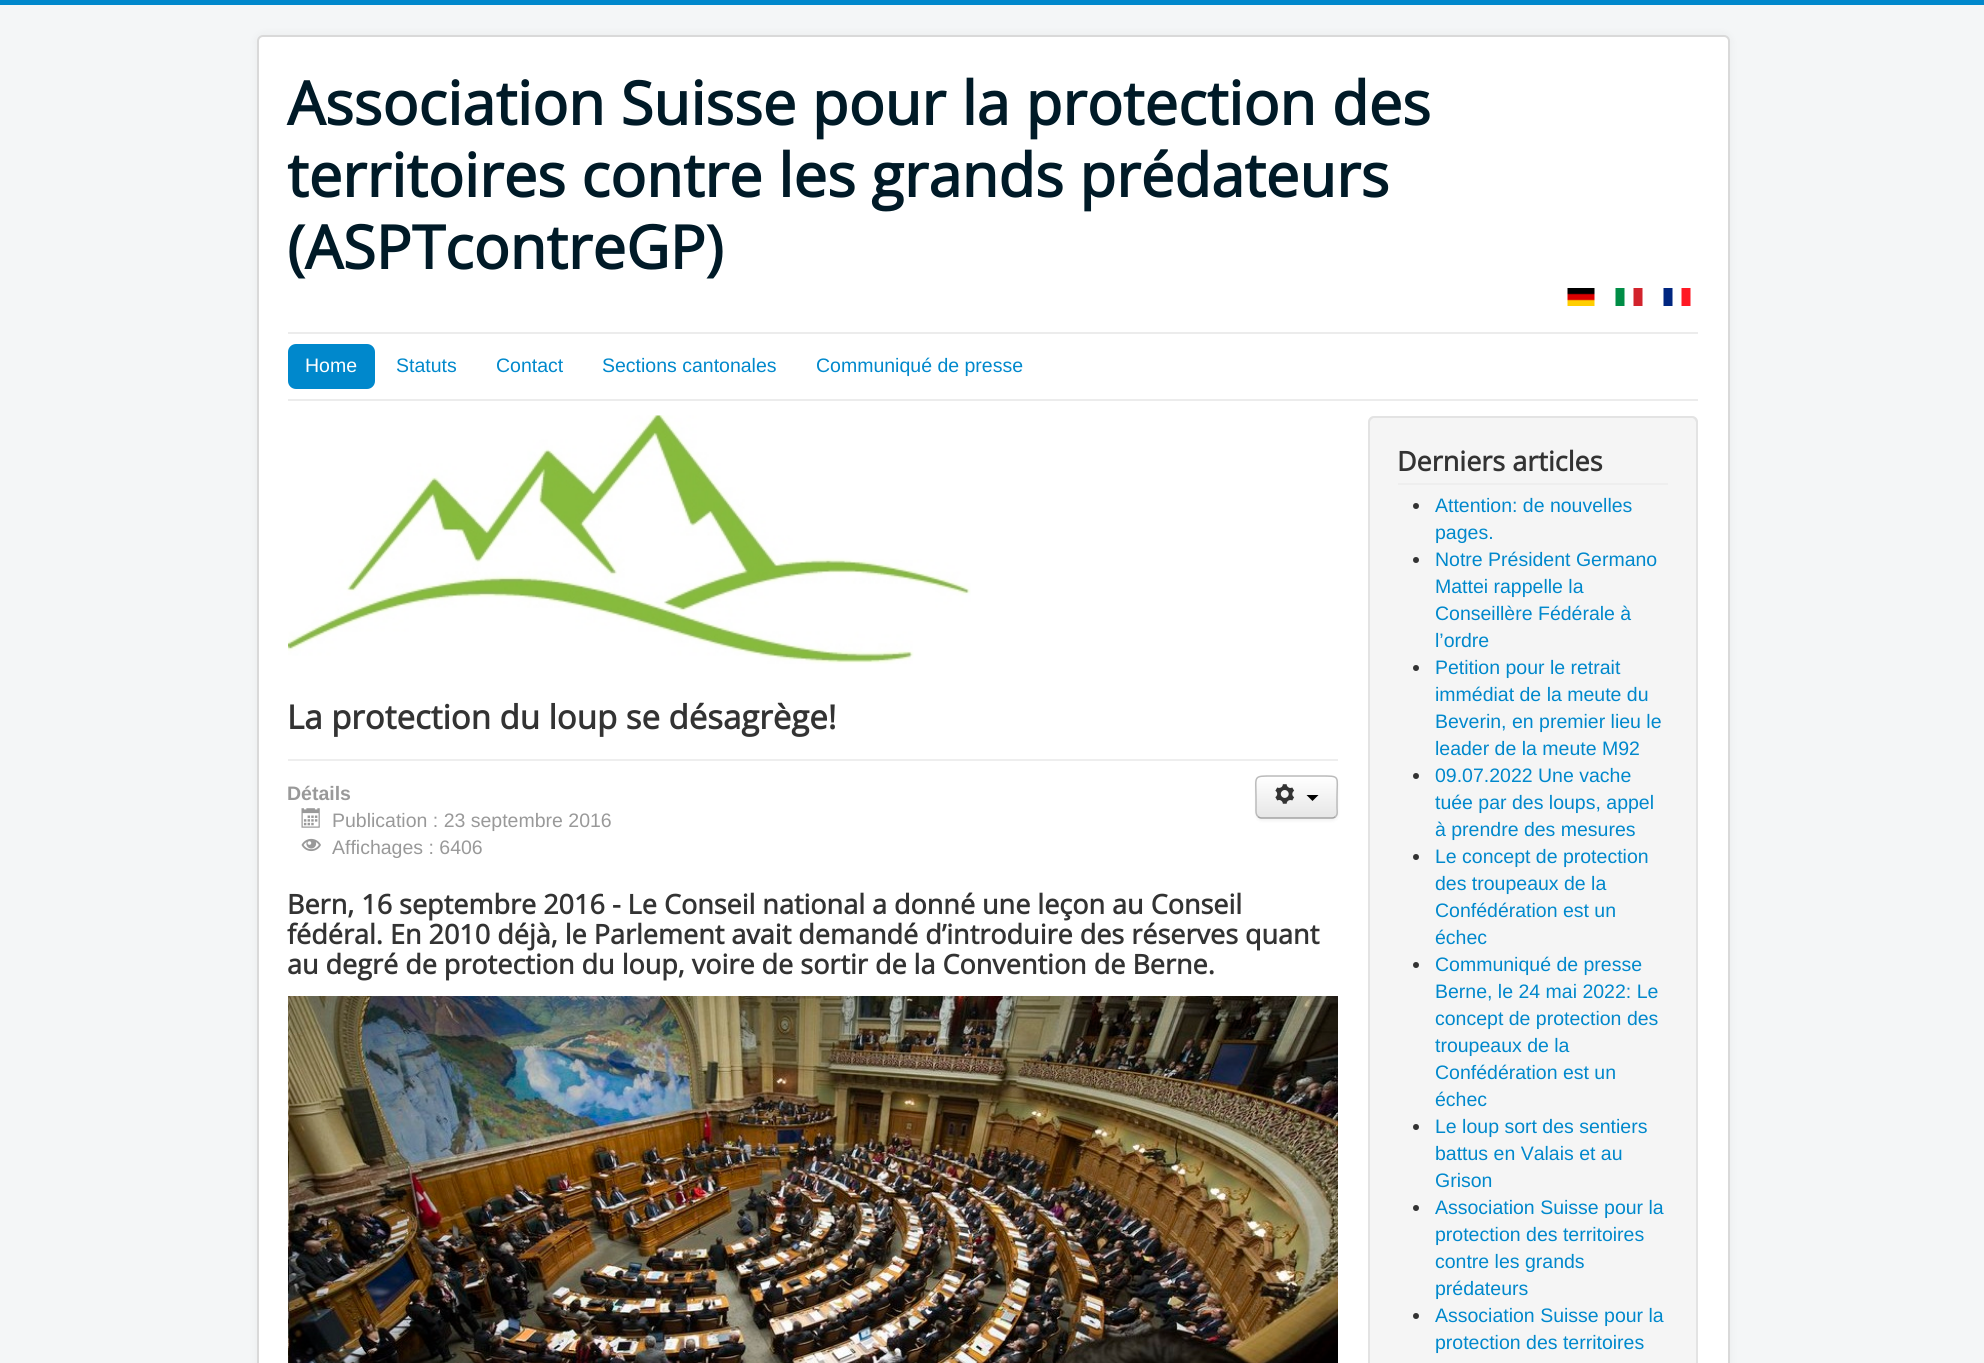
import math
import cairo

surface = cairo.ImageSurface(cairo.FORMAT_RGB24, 1984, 1363)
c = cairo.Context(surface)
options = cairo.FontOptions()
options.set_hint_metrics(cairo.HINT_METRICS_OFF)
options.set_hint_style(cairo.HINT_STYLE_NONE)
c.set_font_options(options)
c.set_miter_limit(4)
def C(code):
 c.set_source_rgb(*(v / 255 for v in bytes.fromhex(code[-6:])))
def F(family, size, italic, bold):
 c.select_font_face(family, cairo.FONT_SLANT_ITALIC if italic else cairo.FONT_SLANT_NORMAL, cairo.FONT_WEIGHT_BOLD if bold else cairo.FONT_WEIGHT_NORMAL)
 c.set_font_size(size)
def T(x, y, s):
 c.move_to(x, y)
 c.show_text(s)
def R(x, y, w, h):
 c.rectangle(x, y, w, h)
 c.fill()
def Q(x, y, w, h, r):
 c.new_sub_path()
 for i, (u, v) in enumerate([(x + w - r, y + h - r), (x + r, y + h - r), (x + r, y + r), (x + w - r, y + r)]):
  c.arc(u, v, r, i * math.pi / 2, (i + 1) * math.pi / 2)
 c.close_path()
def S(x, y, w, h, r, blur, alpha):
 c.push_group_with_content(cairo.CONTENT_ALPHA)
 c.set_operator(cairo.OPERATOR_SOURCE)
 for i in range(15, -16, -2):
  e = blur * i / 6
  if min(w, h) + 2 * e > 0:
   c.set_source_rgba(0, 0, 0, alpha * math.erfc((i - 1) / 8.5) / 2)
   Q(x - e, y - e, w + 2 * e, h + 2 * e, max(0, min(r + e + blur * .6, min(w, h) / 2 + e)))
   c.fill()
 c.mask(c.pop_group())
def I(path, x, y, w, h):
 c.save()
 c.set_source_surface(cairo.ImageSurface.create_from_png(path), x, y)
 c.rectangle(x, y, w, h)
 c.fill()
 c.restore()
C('f4f6f7')
c.paint()
C('0088cc')
R(0,0,1984,5)
C('000000')
S(257,35,1473,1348,6,4.5,.05)
C('ffffff')
Q(257,35,1473,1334,6)
c.fill()
Q(258,36,1471,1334,5)
c.set_source_rgba(0,0,0,0.15)
c.stroke()
F('Open Sans',60,0,1)
C('001a27')
T(287,125,'Association Suisse pour la protection des')
T(287,197,'territoires contre les grands prédateurs')
T(287,269,'(ASPTcontreGP)')
I('1.png',1567,288,28,18)
I('2.png',1615,288,28,18)
I('3.png',1663,288,28,18)
C('ececec')
R(288,332,1410,2)
R(288,399,1410,2)
C('0088cc')
Q(288,344,87,45,8)
c.fill()
F('Liberation Sans',19.5,0,0)
C('ffffff')
T(305,372,'Home')
C('0088cc')
T(396,372,'Statuts')
T(496,372,'Contact')
T(602,372,'Sections cantonales')
T(816,372,'Communiqué de presse')
I('4.png',288,415,683,249)
C('eeeeee')
R(288,759,1050,2)
F('Open Sans',33,0,1)
C('333333')
T(287,729,'La protection du loup se désagrège!')
F('Liberation Sans',19.5,0,1)
C('999999')
T(287,800,'Détails')
I('5.png',301,808,19,20)
F('Liberation Sans',19.5,0,0)
T(332,827,'Publication : 23 septembre 2016')
I('6.png',301,838,20,14)
T(332,854,'Affichages : 6406')
C('000000')
S(1256,777,82,44,6,1.5,.05)
C('f5f5f5')
Q(1256,776,82,43,6)
c.fill()
c.save()
Q(1256,776,82,43,6)
c.clip()
gradient = cairo.LinearGradient(1297,777,1297,818)
gradient.add_color_stop_rgba(0,1,1,1,1)
gradient.add_color_stop_rgba(1,0.902,0.902,0.902,1)
c.set_source(gradient)
R(1256,777,82,41)
c.restore()
c.set_source_rgba(1,1,1,0.2)
c.new_path()
c.move_to(1262,778)
c.line_to(1332,778)
c.curve_to(1334,778,1336,781,1336,783)
c.line_to(1336,814)
c.line_to(1335,817)
c.curve_to(1336,816,1337,814,1337,813)
c.line_to(1337,782)
c.curve_to(1337,779,1335,777,1332,777)
c.line_to(1262,777)
c.curve_to(1259,777,1257,779,1257,782)
c.line_to(1257,783)
c.curve_to(1257,781,1259,778,1262,778)
c.close_path()
c.fill()
c.new_path()
c.move_to(1335.5,816.5)
c.curve_to(1334.5,817.5,1333.5,818,1332,818)
c.line_to(1261.5,818)
c.curve_to(1260,818,1259,817.5,1258,816.5)
C('a2a2a2')
c.set_line_width(1.5)
c.stroke()
c.new_path()
c.move_to(1258,816.5)
c.curve_to(1255.5,814.5,1256,810.5,1256,808)
c.line_to(1256,797)
c.curve_to(1256,775.5,1252.5,776,1273,776)
c.line_to(1320,776)
c.curve_to(1341,776,1337,775.5,1337,797)
c.line_to(1337,808)
c.curve_to(1337,810.5,1338,814.5,1335.5,816.5)
C('bbbbbb')
c.stroke()
I('7.png',1275,784,20,20)
C('000000')
c.new_path()
c.move_to(1306.5,795)
c.line_to(1318.5,795)
c.line_to(1312.5,801)
c.close_path()
c.fill()
F('Open Sans',27,0,1)
C('333333')
T(287,914,'Bern, 16 septembre 2016 - Le Conseil national a donné une leçon au Conseil')
T(287,944,'fédéral. En 2010 déjà, le Parlement avait demandé d’introduire des réserves quant')
T(287,974,'au degré de protection du loup, voire de sortir de la Convention de Berne.')
I('8.png',288,996,1050,367)
C('f5f5f5')
Q(1368,416,330,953,6)
c.fill()
C('e9e9e9')
c.new_path()
c.move_to(1374,418)
c.line_to(1692,418)
c.curve_to(1694,418,1696,421,1696,423)
c.line_to(1696,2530)
c.curve_to(1697,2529,1697,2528,1697,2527)
c.line_to(1697,422)
c.curve_to(1697,419,1695,417,1692,417)
c.line_to(1375,417)
c.curve_to(1372,417,1370,419,1370,422)
c.line_to(1370,423)
c.curve_to(1370,421,1372,418,1374,418)
c.close_path()
c.fill()
Q(1369,417,328,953,5)
C('e3e3e3')
c.set_line_width(2)
c.stroke()
C('eeeeee')
R(1398,483,270,2)
C('333333')
T(1397,471,'Derniers articles')
c.new_path()
c.arc(1416,506,3,0,2 * math.pi)
c.fill()
F('Liberation Sans',19.5,0,0)
C('0088cc')
T(1435,512,'Attention: de nouvelles')
T(1435,539,'pages.')
C('333333')
c.new_path()
c.arc(1416,560,3,0,2 * math.pi)
c.fill()
C('0088cc')
T(1435,566,'Notre Président Germano')
T(1435,593,'Mattei rappelle la')
T(1435,620,'Conseillère Fédérale à')
T(1435,647,'l’ordre')
C('333333')
c.new_path()
c.arc(1416,668,3,0,2 * math.pi)
c.fill()
C('0088cc')
T(1435,674,'Petition pour le retrait')
T(1435,701,'immédiat de la meute du')
T(1435,728,'Beverin, en premier lieu le')
T(1435,755,'leader de la meute M92')
C('333333')
c.new_path()
c.arc(1416,776,3,0,2 * math.pi)
c.fill()
C('0088cc')
T(1435,782,'09.07.2022 Une vache')
T(1435,809,'tuée par des loups, appel')
T(1435,836,'à prendre des mesures')
C('333333')
c.new_path()
c.arc(1416,857,3,0,2 * math.pi)
c.fill()
C('0088cc')
T(1435,863,'Le concept de protection')
T(1435,890,'des troupeaux de la')
T(1435,917,'Confédération est un')
T(1435,944,'échec')
C('333333')
c.new_path()
c.arc(1416,965,3,0,2 * math.pi)
c.fill()
C('0088cc')
T(1435,971,'Communiqué de presse')
T(1435,998,'Berne, le 24 mai 2022: Le')
T(1435,1025,'concept de protection des')
T(1435,1052,'troupeaux de la')
T(1435,1079,'Confédération est un')
T(1435,1106,'échec')
C('333333')
c.new_path()
c.arc(1416,1127,3,0,2 * math.pi)
c.fill()
C('0088cc')
T(1435,1133,'Le loup sort des sentiers')
T(1435,1160,'battus en Valais et au')
T(1435,1187,'Grison')
C('333333')
c.new_path()
c.arc(1416,1208,3,0,2 * math.pi)
c.fill()
C('0088cc')
T(1435,1214,'Association Suisse pour la')
T(1435,1241,'protection des territoires')
T(1435,1268,'contre les grands')
T(1435,1295,'prédateurs')
C('333333')
c.new_path()
c.arc(1416,1316,3,0,2 * math.pi)
c.fill()
C('0088cc')
T(1435,1322,'Association Suisse pour la')
T(1435,1349,'protection des territoires')
surface.write_to_png('o.png')
